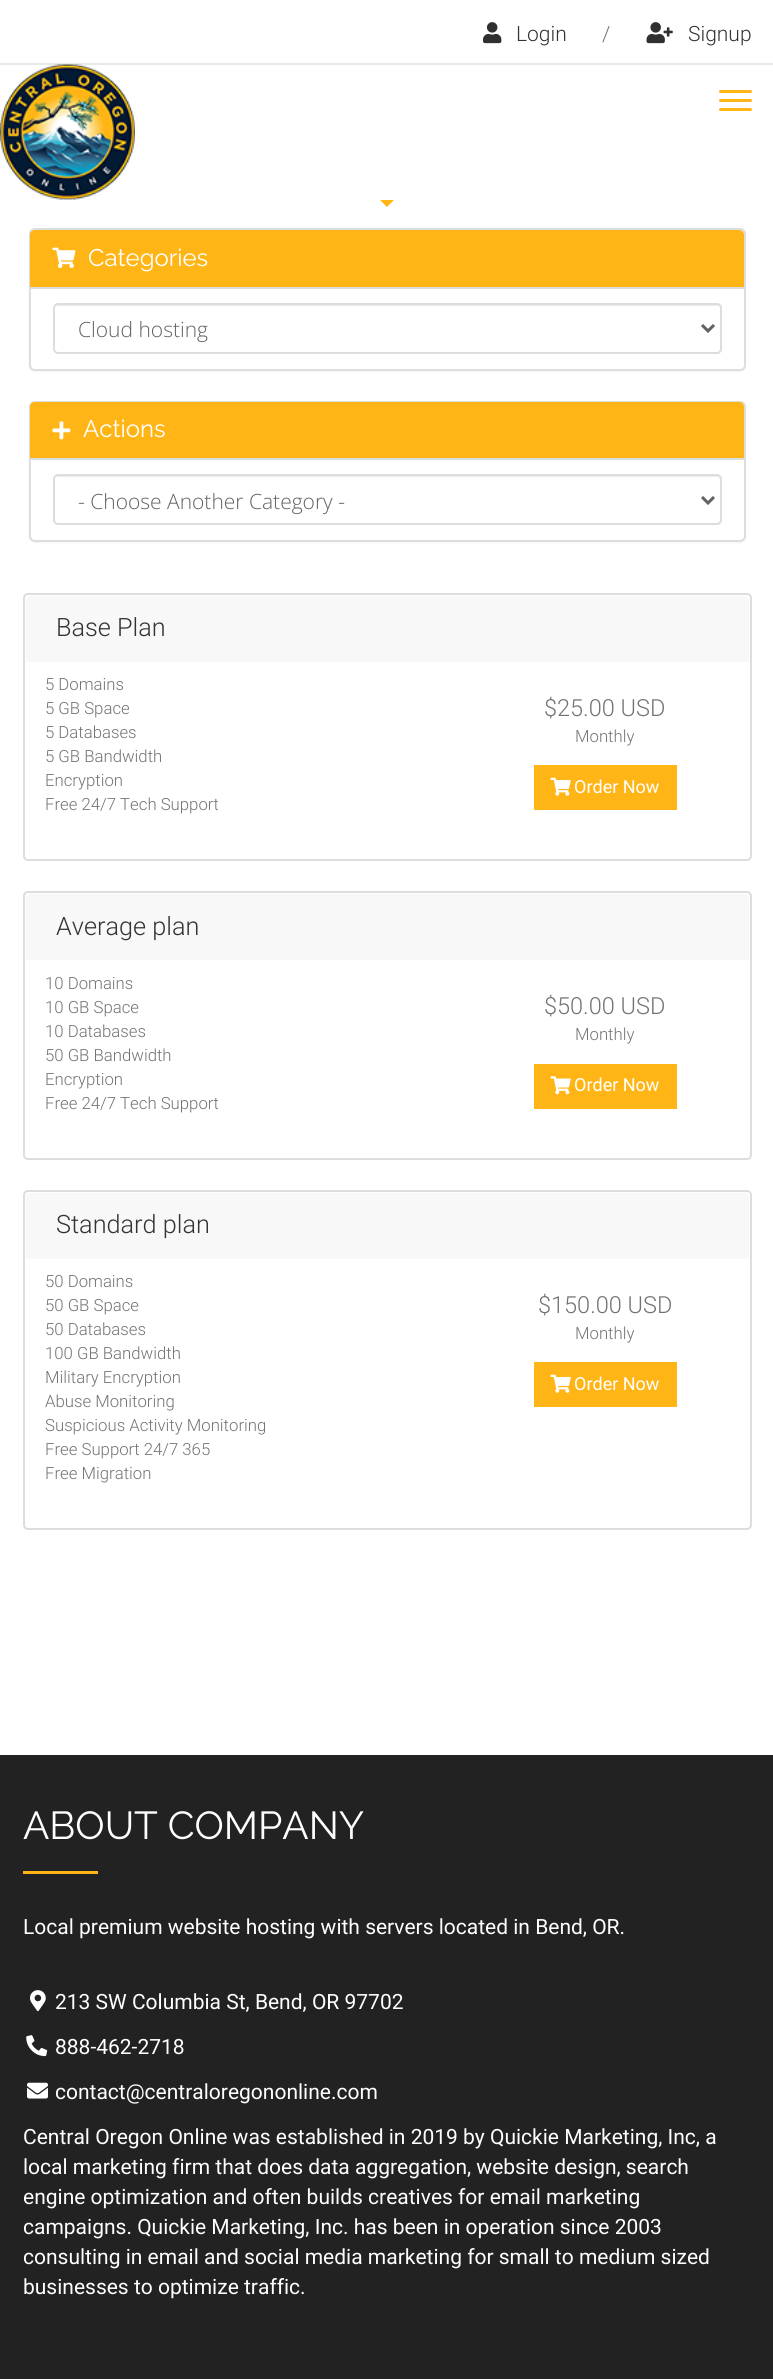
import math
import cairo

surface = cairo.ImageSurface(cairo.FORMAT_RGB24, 773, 2379)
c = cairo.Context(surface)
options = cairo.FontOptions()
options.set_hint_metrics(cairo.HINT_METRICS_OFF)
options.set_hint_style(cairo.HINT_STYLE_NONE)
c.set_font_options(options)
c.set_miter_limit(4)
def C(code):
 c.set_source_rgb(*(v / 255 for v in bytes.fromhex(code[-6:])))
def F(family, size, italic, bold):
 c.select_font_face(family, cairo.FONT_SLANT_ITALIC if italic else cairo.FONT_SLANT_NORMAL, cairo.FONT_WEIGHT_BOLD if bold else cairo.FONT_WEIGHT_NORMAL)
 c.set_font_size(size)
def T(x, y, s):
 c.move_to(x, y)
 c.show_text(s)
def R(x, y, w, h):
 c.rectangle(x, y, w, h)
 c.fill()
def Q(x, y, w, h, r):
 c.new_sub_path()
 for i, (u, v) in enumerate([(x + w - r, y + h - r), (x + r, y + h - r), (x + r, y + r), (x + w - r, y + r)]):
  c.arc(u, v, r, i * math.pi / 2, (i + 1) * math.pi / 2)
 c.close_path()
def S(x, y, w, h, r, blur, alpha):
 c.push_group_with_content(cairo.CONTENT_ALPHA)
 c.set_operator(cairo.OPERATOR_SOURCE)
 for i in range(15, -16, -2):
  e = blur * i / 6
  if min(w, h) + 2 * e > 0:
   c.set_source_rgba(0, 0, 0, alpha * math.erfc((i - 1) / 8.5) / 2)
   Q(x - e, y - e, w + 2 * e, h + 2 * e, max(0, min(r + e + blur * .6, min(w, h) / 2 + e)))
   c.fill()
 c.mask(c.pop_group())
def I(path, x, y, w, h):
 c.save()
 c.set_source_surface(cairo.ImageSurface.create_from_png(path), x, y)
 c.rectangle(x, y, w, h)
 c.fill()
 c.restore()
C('ffffff')
c.paint()
C('e9e9e9')
R(0,63,773,2)
I('1.png',483,22,19,22)
F('Roboto Light',21,0,0)
C('333333')
T(516,41,'Login')
C('737373')
T(602,41,'/')
I('2.png',646,22,27,22)
C('333333')
T(688,41,'Signup')
C('ffb516')
c.new_path()
c.move_to(372,192)
c.line_to(402,192)
c.line_to(387,207)
c.close_path()
c.fill()
C('ffffff')
R(372,192,30,8)
I('3.png',0,64,135,136)
C('ffb516')
Q(719,90,33,3,1.5)
c.fill()
Q(719,99,33,3,1.5)
c.fill()
Q(719,108,33,3,1.5)
c.fill()
C('000000')
S(29,230,717,142,6,1,.05)
C('ffffff')
Q(30,229,715,141,5)
c.fill_preserve()
C('dddddd')
c.stroke()
C('ffb516')
c.new_path()
c.move_to(35,230)
c.line_to(739,230)
c.curve_to(742,230,744,232,744,235)
c.line_to(744,288)
c.line_to(30,288)
c.line_to(30,235)
c.curve_to(30,232,32,230,35,230)
c.close_path()
c.fill()
C('dddddd')
R(30,287,714,2)
I('4.png',52,247,24,21)
F('Raleway',24,0,0)
C('ffffff')
T(88,266,'Categories')
C('ececec')
c.new_path()
c.move_to(57,306)
c.line_to(717,306)
c.curve_to(719,306,720,307,720,309)
c.line_to(720,308)
c.curve_to(720,306,719,305,717,305)
c.line_to(57,305)
c.curve_to(55,305,54,306,54,308)
c.line_to(54,309)
c.curve_to(54,307,55,306,57,306)
c.close_path()
c.fill()
Q(54,304,667,49,4)
C('dddddd')
c.stroke()
c.new_path()
c.move_to(702,325)
c.line_to(708,331)
c.line_to(714,325)
C('626262')
c.set_line_width(3)
c.stroke()
F('Open Sans Light',21,0,0)
T(78,337,'Cloud hosting')
C('000000')
S(29,402,717,141,6,1,.05)
C('ffffff')
Q(30,402,715,139,5)
c.fill_preserve()
C('dddddd')
c.set_line_width(2)
c.stroke()
C('ffb516')
c.new_path()
c.move_to(35,402)
c.line_to(739,402)
c.curve_to(742,402,744,404,744,407)
c.line_to(744,459)
c.line_to(30,459)
c.line_to(30,407)
c.curve_to(30,404,32,402,35,402)
c.close_path()
c.fill()
C('dddddd')
R(30,458,714,2)
I('5.png',52,421,19,19)
F('Raleway',24,0,0)
C('ffffff')
T(83,437,'Actions')
C('ececec')
c.new_path()
c.move_to(57,477)
c.line_to(717,477)
c.curve_to(719,477,720,478,720,480)
c.line_to(720,479)
c.curve_to(720,477,719,476,717,476)
c.line_to(57,476)
c.curve_to(55,476,54,477,54,479)
c.line_to(54,480)
c.curve_to(54,478,55,477,57,477)
c.close_path()
c.fill()
Q(54,475,667,49,4)
C('dddddd')
c.stroke()
c.new_path()
c.move_to(702,497)
c.line_to(708,503)
c.line_to(714,497)
C('626262')
c.set_line_width(3)
c.stroke()
F('Open Sans Light',21,0,0)
T(78,509,'- Choose Another Category -')
Q(24,594,727,266,4)
C('dddddd')
c.set_line_width(2)
c.stroke()
C('f8f8f8')
c.new_path()
c.move_to(31,596)
c.line_to(744,596)
c.curve_to(747,596,749,598,749,601)
c.line_to(749,662)
c.line_to(26,662)
c.line_to(26,601)
c.curve_to(26,598,28,596,31,596)
c.close_path()
c.fill()
F('Roboto Light',25.25,0,0)
C('333333')
T(56,636,'Base Plan')
F('Roboto Light',16.75,0,0)
C('737373')
T(45,690,'5 Domains')
T(45,714,'5 GB Space')
T(45,738,'5 Databases')
T(45,762,'5 GB Bandwidth')
T(45,786,'Encryption')
T(45,810,'Free 24/7 Tech Support')
F('Roboto Light',23.5,0,0)
T(544,716,'$25.00 USD')
F('Roboto Light',16.75,0,0)
T(575,742,'Monthly')
C('ffb516')
R(534,765,143,45)
I('6.png',550,777,21,19)
F('Roboto',18,0,0)
C('ffffff')
T(574,793,'Order Now')
Q(24,892,727,267,4)
C('dddddd')
c.stroke()
C('f8f8f8')
c.new_path()
c.move_to(31,894)
c.line_to(744,894)
c.curve_to(747,894,749,896,749,899)
c.line_to(749,960)
c.line_to(26,960)
c.line_to(26,899)
c.curve_to(26,896,28,894,31,894)
c.close_path()
c.fill()
F('Roboto Light',25.25,0,0)
C('333333')
T(56,935,'Average plan')
F('Roboto Light',16.75,0,0)
C('737373')
T(45,989,'10 Domains')
T(45,1013,'10 GB Space')
T(45,1037,'10 Databases')
T(45,1061,'50 GB Bandwidth')
T(45,1085,'Encryption')
T(45,1109,'Free 24/7 Tech Support')
F('Roboto Light',23.5,0,0)
T(544,1014,'$50.00 USD')
F('Roboto Light',16.75,0,0)
T(575,1040,'Monthly')
C('ffb516')
R(534,1064,143,45)
I('7.png',550,1076,21,19)
F('Roboto',18,0,0)
C('ffffff')
T(574,1091,'Order Now')
Q(24,1191,727,338,4)
C('dddddd')
c.stroke()
C('f8f8f8')
c.new_path()
c.move_to(31,1193)
c.line_to(744,1193)
c.curve_to(747,1193,749,1195,749,1198)
c.line_to(749,1259)
c.line_to(26,1259)
c.line_to(26,1198)
c.curve_to(26,1195,28,1193,31,1193)
c.close_path()
c.fill()
F('Roboto Light',25.25,0,0)
C('333333')
T(56,1233,'Standard plan')
F('Roboto Light',16.75,0,0)
C('737373')
T(45,1287,'50 Domains')
T(45,1311,'50 GB Space')
T(45,1335,'50 Databases')
T(45,1359,'100 GB Bandwidth')
T(45,1383,'Military Encryption')
T(45,1407,'Abuse Monitoring')
T(45,1431,'Suspicious Activity Monitoring')
T(45,1455,'Free Support 24/7 365')
T(45,1479,'Free Migration')
F('Roboto Light',23.5,0,0)
T(538,1313,'$150.00 USD')
F('Roboto Light',16.75,0,0)
T(575,1339,'Monthly')
C('ffb516')
R(534,1362,143,45)
I('6.png',550,1374,21,19)
F('Roboto',18,0,0)
C('ffffff')
T(574,1390,'Order Now')
C('222222')
R(0,1755,773,624)
F('Raleway',39,0,0)
C('ffffff')
T(23,1839,'ABOUT COMPANY')
C('ffb516')
R(23,1871,75,3)
F('Roboto',21,0,0)
C('ffffff')
T(23,1934,'Local premium website hosting with servers located in Bend, OR.')
I('8.png',30,1990,16,22)
T(55,2009,'213 SW Columbia St, Bend, OR 97702')
I('9.png',26,2035,22,22)
T(55,2054,'888-462-2718')
I('10.png',27,2082,21,17)
T(55,2099,'contact@centraloregononline.com')
T(23,2144,'Central Oregon Online was established in 2019 by Quickie Marketing, Inc, a')
T(23,2174,'local marketing firm that does data aggregation, website design, search')
T(23,2204,'engine optimization and often builds creatives for email marketing')
T(23,2234,'campaigns. Quickie Marketing, Inc. has been in operation since 2003')
T(23,2264,'consulting in email and social media marketing for small to medium sized')
T(23,2294,'businesses to optimize traffic.')
surface.write_to_png('o.png')
